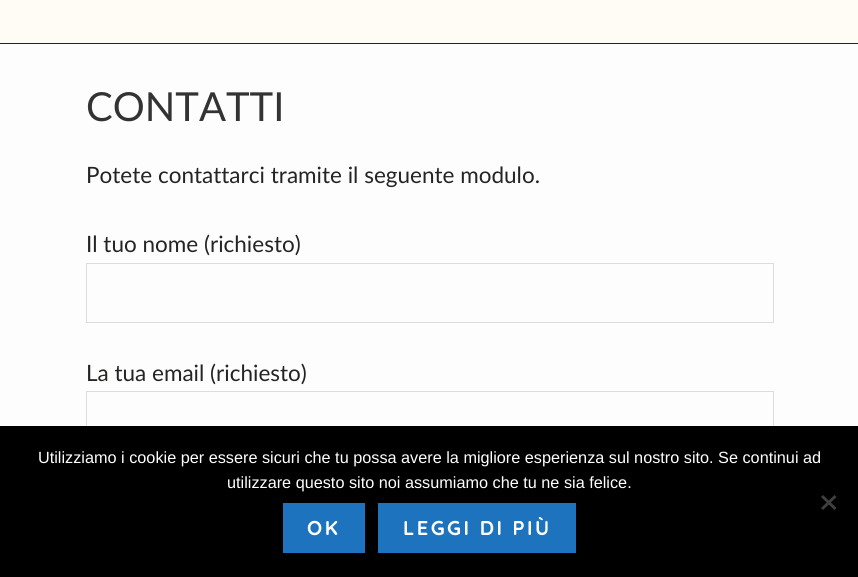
import math
import cairo

surface = cairo.ImageSurface(cairo.FORMAT_RGB24, 858, 577)
c = cairo.Context(surface)
options = cairo.FontOptions()
options.set_hint_metrics(cairo.HINT_METRICS_OFF)
options.set_hint_style(cairo.HINT_STYLE_NONE)
c.set_font_options(options)
c.set_miter_limit(4)
def C(code):
 c.set_source_rgb(*(v / 255 for v in bytes.fromhex(code[-6:])))
def F(family, size, italic, bold):
 c.select_font_face(family, cairo.FONT_SLANT_ITALIC if italic else cairo.FONT_SLANT_NORMAL, cairo.FONT_WEIGHT_BOLD if bold else cairo.FONT_WEIGHT_NORMAL)
 c.set_font_size(size)
def T(x, y, s):
 c.move_to(x, y)
 c.show_text(s)
def L(x, y, s, letter, word):
 c.move_to(x, y)
 for ch in s:
  c.show_text(ch)
  c.rel_move_to(letter + word * (ch == ' '), 0)
def R(x, y, w, h):
 c.rectangle(x, y, w, h)
 c.fill()
C('fdfdfd')
c.paint()
C('fffcf5')
R(0,0,858,43)
C('252422')
R(0,43,858,1)
F('Lato',40,0,0)
C('333333')
T(86,121,'CONTATTI')
F('Lato',22.5,0,0)
C('252422')
T(86,183,'Potete contattarci tramite il seguente modulo.')
T(86,252,'Il tuo nome (richiesto)')
c.rectangle(86.5,263.5,687,59)
C('dddddd')
c.set_line_width(1)
c.stroke()
C('252422')
T(86,381,'La tua email (richiesto)')
c.rectangle(86.5,391.5,687,59)
C('dddddd')
c.stroke()
C('000000')
R(0,426,858,151)
F('Liberation Sans',16.25,0,0)
C('ffffff')
T(38,463,'Utilizziamo i cookie per essere sicuri che tu possa avere la migliore esperienza sul nostro sito. Se continui ad')
T(227,488,'utilizzare questo sito noi assumiamo che tu ne sia felice.')
C('404040')
c.new_path()
c.move_to(834.5,495)
c.line_to(836.5,497)
c.line_to(823,510)
c.line_to(821,508)
c.close_path()
c.fill()
c.new_path()
c.move_to(821,497)
c.line_to(823,495)
c.line_to(836.5,508)
c.line_to(834.5,510)
c.close_path()
c.fill()
C('1e73be')
R(283,503,82,50)
F('Quicksand',20,0,1)
C('ffffff')
L(307,535,'OK',2.5,0)
C('1e73be')
R(378,503,198,50)
C('ffffff')
L(403,535,'LEGGI DI PIÙ',2.5,0)
surface.write_to_png('o.png')
